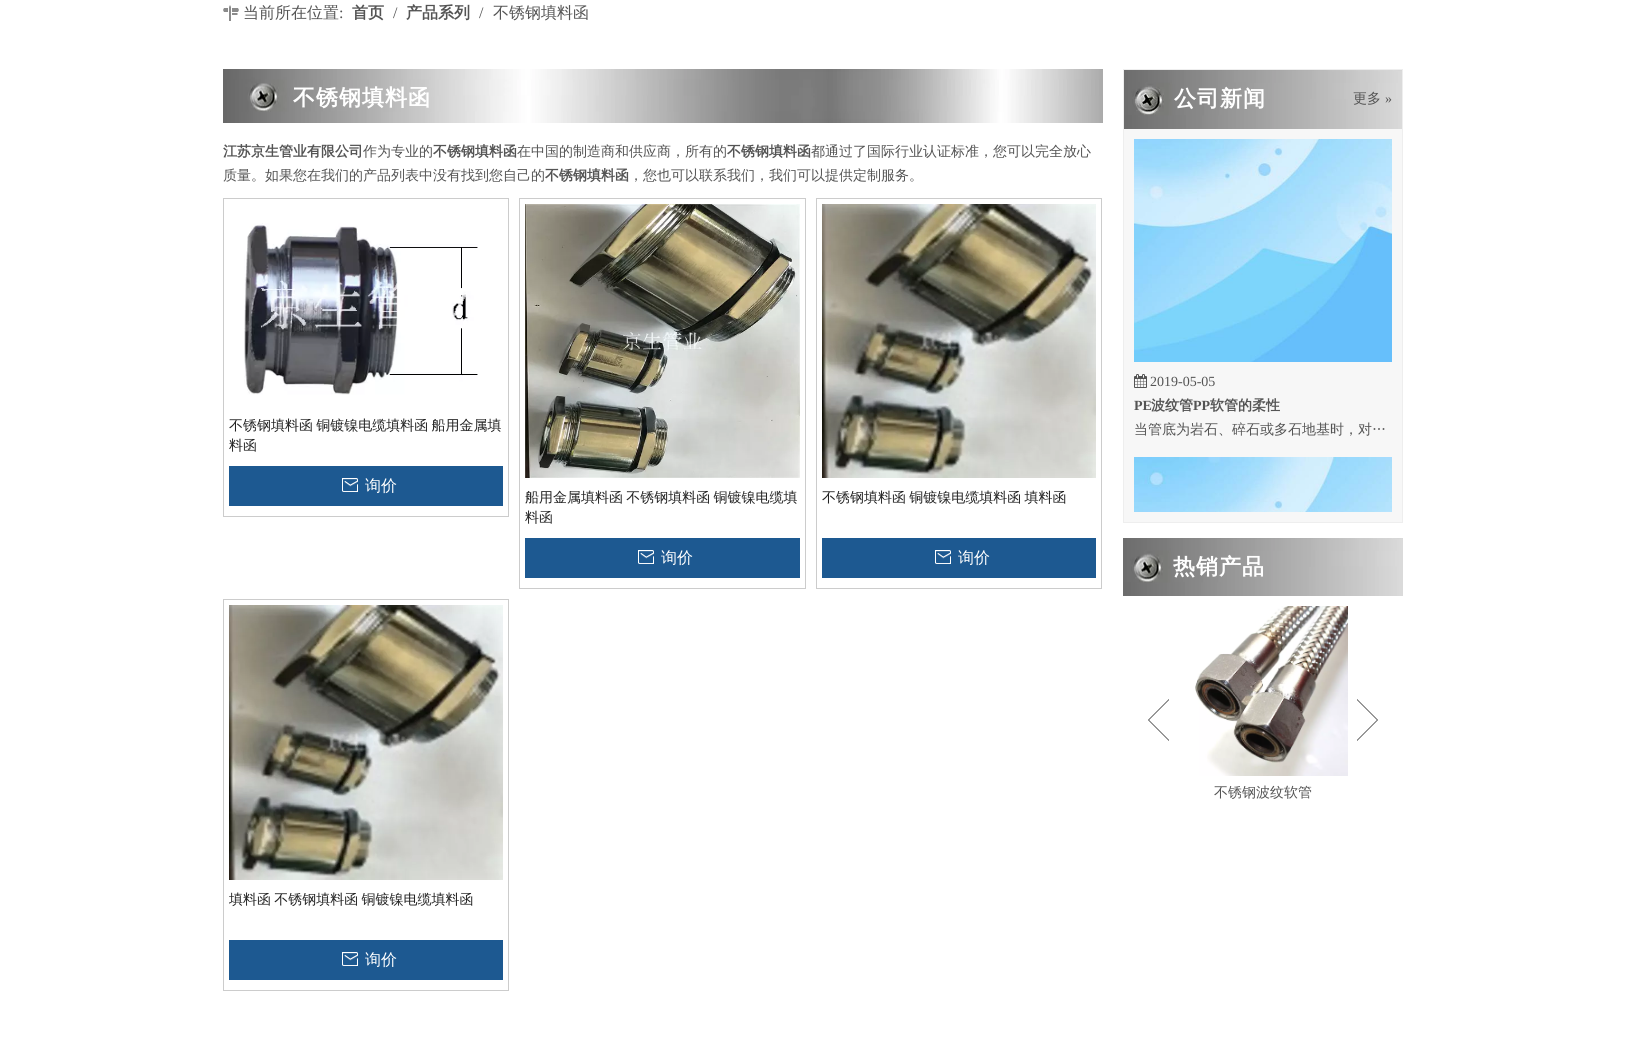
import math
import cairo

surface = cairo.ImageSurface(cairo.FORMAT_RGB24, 1625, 1057)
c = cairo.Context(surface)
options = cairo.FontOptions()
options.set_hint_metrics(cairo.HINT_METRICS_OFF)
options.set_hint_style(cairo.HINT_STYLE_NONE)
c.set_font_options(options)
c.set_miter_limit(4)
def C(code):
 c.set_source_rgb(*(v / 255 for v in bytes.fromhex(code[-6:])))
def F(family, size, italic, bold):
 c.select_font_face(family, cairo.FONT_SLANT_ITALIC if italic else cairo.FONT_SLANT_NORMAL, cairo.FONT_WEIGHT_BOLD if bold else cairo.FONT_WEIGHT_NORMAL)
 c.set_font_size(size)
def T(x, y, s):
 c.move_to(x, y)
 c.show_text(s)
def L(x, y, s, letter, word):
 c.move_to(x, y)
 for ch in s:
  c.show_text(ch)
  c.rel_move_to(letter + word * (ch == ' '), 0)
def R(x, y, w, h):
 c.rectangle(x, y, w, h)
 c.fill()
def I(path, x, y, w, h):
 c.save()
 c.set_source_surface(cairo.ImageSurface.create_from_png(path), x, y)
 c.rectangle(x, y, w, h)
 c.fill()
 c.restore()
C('ffffff')
c.paint()
I('1.png',223,5,16,16)
F('WenQuanYi Zen Hei Medium',16,0,0)
C('545454')
T(243,18,'当前所在位置')
F('Liberation Serif',16,0,0)
T(339,18,':')
F('WenQuanYi Zen Hei',16,0,1)
T(352,18,'首页')
F('Liberation Serif',16,0,0)
T(393,18,'/')
F('WenQuanYi Zen Hei',16,0,1)
T(406,18,'产品系列')
F('Liberation Serif',16,0,0)
T(479,18,'/')
F('WenQuanYi Zen Hei Medium',16,0,0)
T(493,18,'不锈钢填料函')
I('2.png',223,69,880,54)
F('WenQuanYi Zen Hei',22,0,1)
C('ffffff')
L(293,105,'不锈钢填料函',1,0)
F('WenQuanYi Zen Hei',14,0,1)
C('545454')
T(223,156,'江苏京生管业有限公司')
F('WenQuanYi Zen Hei Medium',14,0,0)
T(363,156,'作为专业的')
F('WenQuanYi Zen Hei',14,0,1)
T(433,156,'不锈钢填料函')
F('WenQuanYi Zen Hei Medium',14,0,0)
T(517,156,'在中国的制造商和供应商，所有的')
F('WenQuanYi Zen Hei',14,0,1)
T(727,156,'不锈钢填料函')
F('WenQuanYi Zen Hei Medium',14,0,0)
T(811,156,'都通过了国际行业认证标准，您可以完全放心')
T(223,180,'质量。如果您在我们的产品列表中没有找到您自己的')
F('WenQuanYi Zen Hei',14,0,1)
T(545,180,'不锈钢填料函')
F('WenQuanYi Zen Hei Medium',14,0,0)
T(629,180,'，您也可以联系我们，我们可以提供定制服务。')
c.rectangle(223.5,198.5,285,318)
C('cccccc')
c.set_line_width(1)
c.stroke()
I('3.png',244,223,234,172)
C('222222')
L(229,430,'不锈钢填料函 铜镀镍电缆填料函 船用金属填',0,-1)
T(229,450,'料函')
C('1d5991')
R(229,466,274,40)
I('4.png',342,478,16,14)
F('WenQuanYi Zen Hei Medium',16,0,0)
C('ffffff')
T(365,491,'询价')
c.rectangle(519.5,198.5,286,390)
C('cccccc')
c.stroke()
I('5.png',525,204,275,274)
F('WenQuanYi Zen Hei Medium',14,0,0)
C('222222')
L(525,502,'船用金属填料函 不锈钢填料函 铜镀镍电缆填',0,-1)
T(525,522,'料函')
C('1d5991')
R(525,538,275,40)
I('4.png',638,550,16,14)
F('WenQuanYi Zen Hei Medium',16,0,0)
C('ffffff')
T(661,563,'询价')
c.rectangle(816.5,198.5,285,390)
C('cccccc')
c.stroke()
I('6.png',822,204,274,274)
F('WenQuanYi Zen Hei Medium',14,0,0)
C('222222')
L(822,502,'不锈钢填料函 铜镀镍电缆填料函 填料函',0,-1)
C('1d5991')
R(822,538,274,40)
I('4.png',935,550,16,14)
F('WenQuanYi Zen Hei Medium',16,0,0)
C('ffffff')
T(958,563,'询价')
c.rectangle(223.5,599.5,285,391)
C('cccccc')
c.stroke()
I('7.png',229,605,274,275)
c.save()
c.rectangle(229,890,274,40)
c.clip()
F('WenQuanYi Zen Hei Medium',14,0,0)
C('222222')
L(229,904,'填料函 不锈钢填料函 铜镀镍电缆填料函',0,-1)
c.restore()
C('1d5991')
R(229,940,274,40)
I('4.png',342,952,16,14)
C('ffffff')
T(365,965,'询价')
C('f7f7f7')
R(1124,129,278,393)
c.rectangle(1123.5,69.5,279,453)
C('eeeeee')
c.stroke()
I('8.png',1124,70,278,59)
F('WenQuanYi Zen Hei',22,0,1)
C('ffffff')
L(1174,106,'公司新闻',1,0)
F('WenQuanYi Zen Hei Medium',14,0,0)
C('545454')
T(1353,103,'更多')
F('Liberation Serif',14,0,0)
T(1385,103,'»')
I('9.png',1134,139,258,223)
I('10.png',1134,374,13,14)
T(1150,386,'2019-05-05')
F('Liberation Serif',14,0,1)
T(1134,410,'PE')
F('WenQuanYi Zen Hei',14,0,1)
T(1151,410,'波纹管')
F('Liberation Serif',14,0,1)
T(1193,410,'PP')
F('WenQuanYi Zen Hei',14,0,1)
T(1210,410,'软管的柔性')
F('WenQuanYi Zen Hei Medium',14,0,0)
T(1134,434,'当管底为岩石、碎石或多石地基时，对…')
I('11.png',1134,457,258,55)
I('12.png',1123,538,280,58)
F('WenQuanYi Zen Hei',22,0,1)
C('ffffff')
L(1173,574,'热销产品',1,0)
I('13.png',1148,699,21,42)
I('14.png',1357,699,21,42)
I('15.png',1195,606,153,170)
F('WenQuanYi Zen Hei Medium',14,0,0)
C('545454')
T(1214,797,'不锈钢波纹软管')
surface.write_to_png('o.png')
